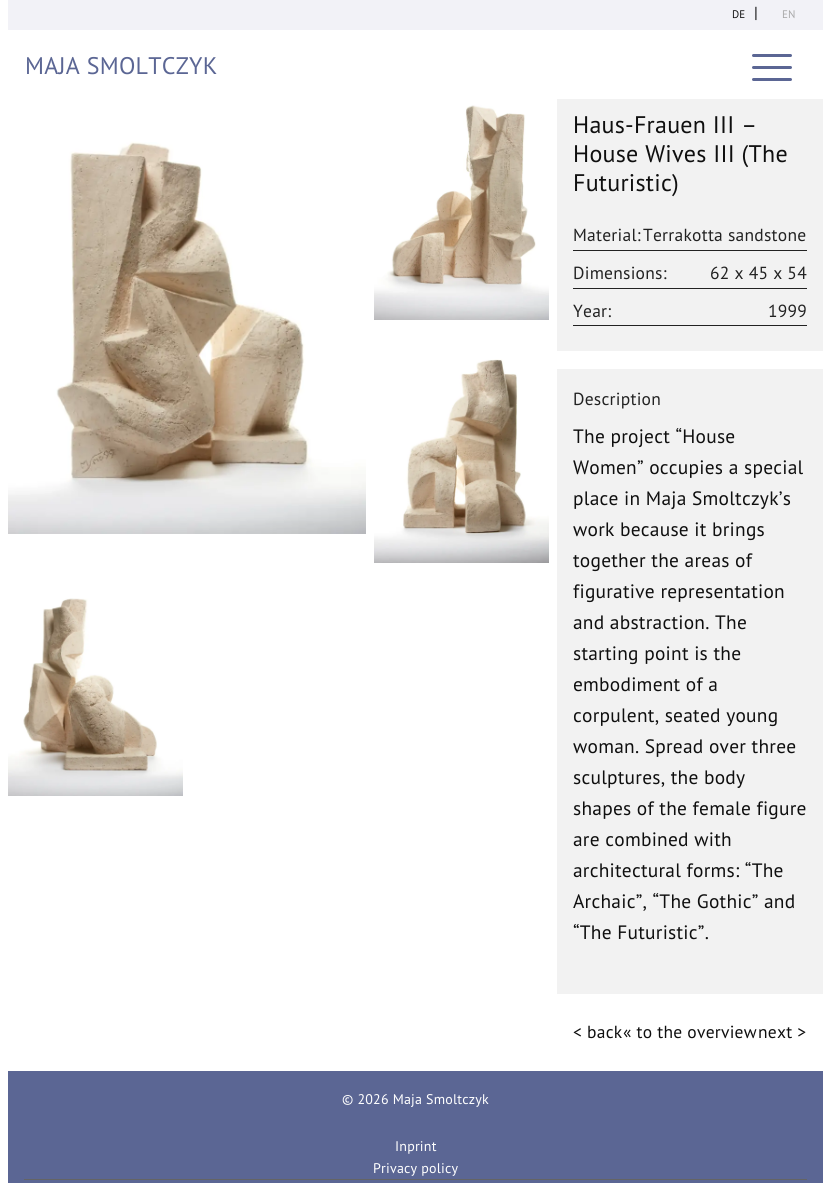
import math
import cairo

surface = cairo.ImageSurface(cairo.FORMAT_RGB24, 831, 1183)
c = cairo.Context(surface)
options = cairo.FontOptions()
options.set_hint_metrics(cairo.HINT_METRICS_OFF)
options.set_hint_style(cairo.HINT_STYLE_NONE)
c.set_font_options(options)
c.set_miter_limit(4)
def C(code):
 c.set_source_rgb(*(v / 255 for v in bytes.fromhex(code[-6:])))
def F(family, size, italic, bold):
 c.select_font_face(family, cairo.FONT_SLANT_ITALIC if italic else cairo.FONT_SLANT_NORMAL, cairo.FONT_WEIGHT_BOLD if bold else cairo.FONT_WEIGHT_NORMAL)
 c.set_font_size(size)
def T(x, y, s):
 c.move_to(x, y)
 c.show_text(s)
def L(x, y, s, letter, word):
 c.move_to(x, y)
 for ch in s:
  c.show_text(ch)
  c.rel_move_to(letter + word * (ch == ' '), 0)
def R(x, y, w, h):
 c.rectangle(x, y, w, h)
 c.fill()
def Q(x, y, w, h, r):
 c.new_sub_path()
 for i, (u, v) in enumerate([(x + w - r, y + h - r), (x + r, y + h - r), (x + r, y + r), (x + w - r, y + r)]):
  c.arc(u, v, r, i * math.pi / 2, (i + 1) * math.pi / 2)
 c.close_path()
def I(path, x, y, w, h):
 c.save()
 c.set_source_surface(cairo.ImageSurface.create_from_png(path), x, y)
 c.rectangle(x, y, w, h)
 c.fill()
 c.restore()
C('f2f2f7')
c.paint()
C('ffffff')
R(823,0,8,1183)
R(0,0,8,1183)
F('PT Sans',11,0,0)
C('0f0f0f')
T(732,18,'DE')
F('PT Sans',16,0,0)
T(754,18,'|')
F('PT Sans',11,0,0)
C('a8a8a8')
T(782,18,'EN')
C('ffffff')
R(1,30,830,8)
R(9,38,814,61)
R(8,30,1,69)
F('PT Sans',24,0,0)
C('5b6694')
L(25,74,'MAJA SMOLTCZYK',.25,0)
Q(752,54,40,3,1.5)
c.fill()
Q(752,66,40,3,1.5)
c.fill()
Q(752,78,40,3,1.5)
c.fill()
C('ffffff')
R(8,99,815,972)
I('1.png',8,99,358,435)
I('2.png',374,99,175,221)
I('3.png',374,359,175,204)
I('4.png',8,598,175,198)
C('f2f2f2')
R(557,99,266,252)
C('0f0f0f')
L(573,133,'Haus-Frauen III –',.25,0)
L(573,162,'House Wives III (The',.25,0)
L(573,191,'Futuristic)',.25,0)
C('222222')
R(573,250,234,1)
F('PT Sans',17.5,0,0)
L(573,241,'Material:',.25,0)
L(643,241,'Terrakotta sandstone',.25,0)
R(573,288,234,1)
L(573,279,'Dimensions:',.25,0)
L(710,279,'62 x 45 x 54',.25,0)
R(573,325,234,1)
L(573,317,'Year:',.25,0)
L(768,317,'1999',.25,0)
C('f2f2f2')
R(557,369,266,625)
C('222222')
L(573,405,'Description',.25,0)
F('PT Sans',19.4,0,0)
C('0f0f0f')
L(573,443,'The project “House',.25,0)
L(573,474,'Women” occupies a special',.25,0)
L(573,505,'place in Maja Smoltczyk’s',.25,0)
L(573,536,'work because it brings',.25,0)
L(573,567,'together the areas of',.25,0)
L(573,598,'figurative representation',.25,0)
L(573,629,'and abstraction. The',.25,0)
L(573,660,'starting point is the',.25,0)
L(573,691,'embodiment of a',.25,0)
L(573,722,'corpulent, seated young',.25,0)
L(573,753,'woman. Spread over three',.25,0)
L(573,784,'sculptures, the body',.25,0)
L(573,815,'shapes of the female figure',.25,0)
L(573,846,'are combined with',.25,0)
L(573,877,'architectural forms: “The',.25,0)
L(573,908,'Archaic”, “The Gothic” and',.25,0)
L(573,939,'“The Futuristic”.',.25,0)
F('PT Sans',17.5,0,0)
L(573,1038,'< back',.25,0)
L(623,1038,'« to the overview',.25,0)
L(758,1038,'next >',.25,0)
C('5b6694')
R(8,1071,815,112)
F('PT Sans',14,0,0)
C('ffffff')
L(342,1104,'© 2026 Maja Smoltczyk',.2,0)
C('646464')
R(24,1179,783,1)
C('ffffff')
L(395,1151,'Inprint',.2,0)
L(373,1173,'Privacy policy',.2,0)
surface.write_to_png('o.png')
